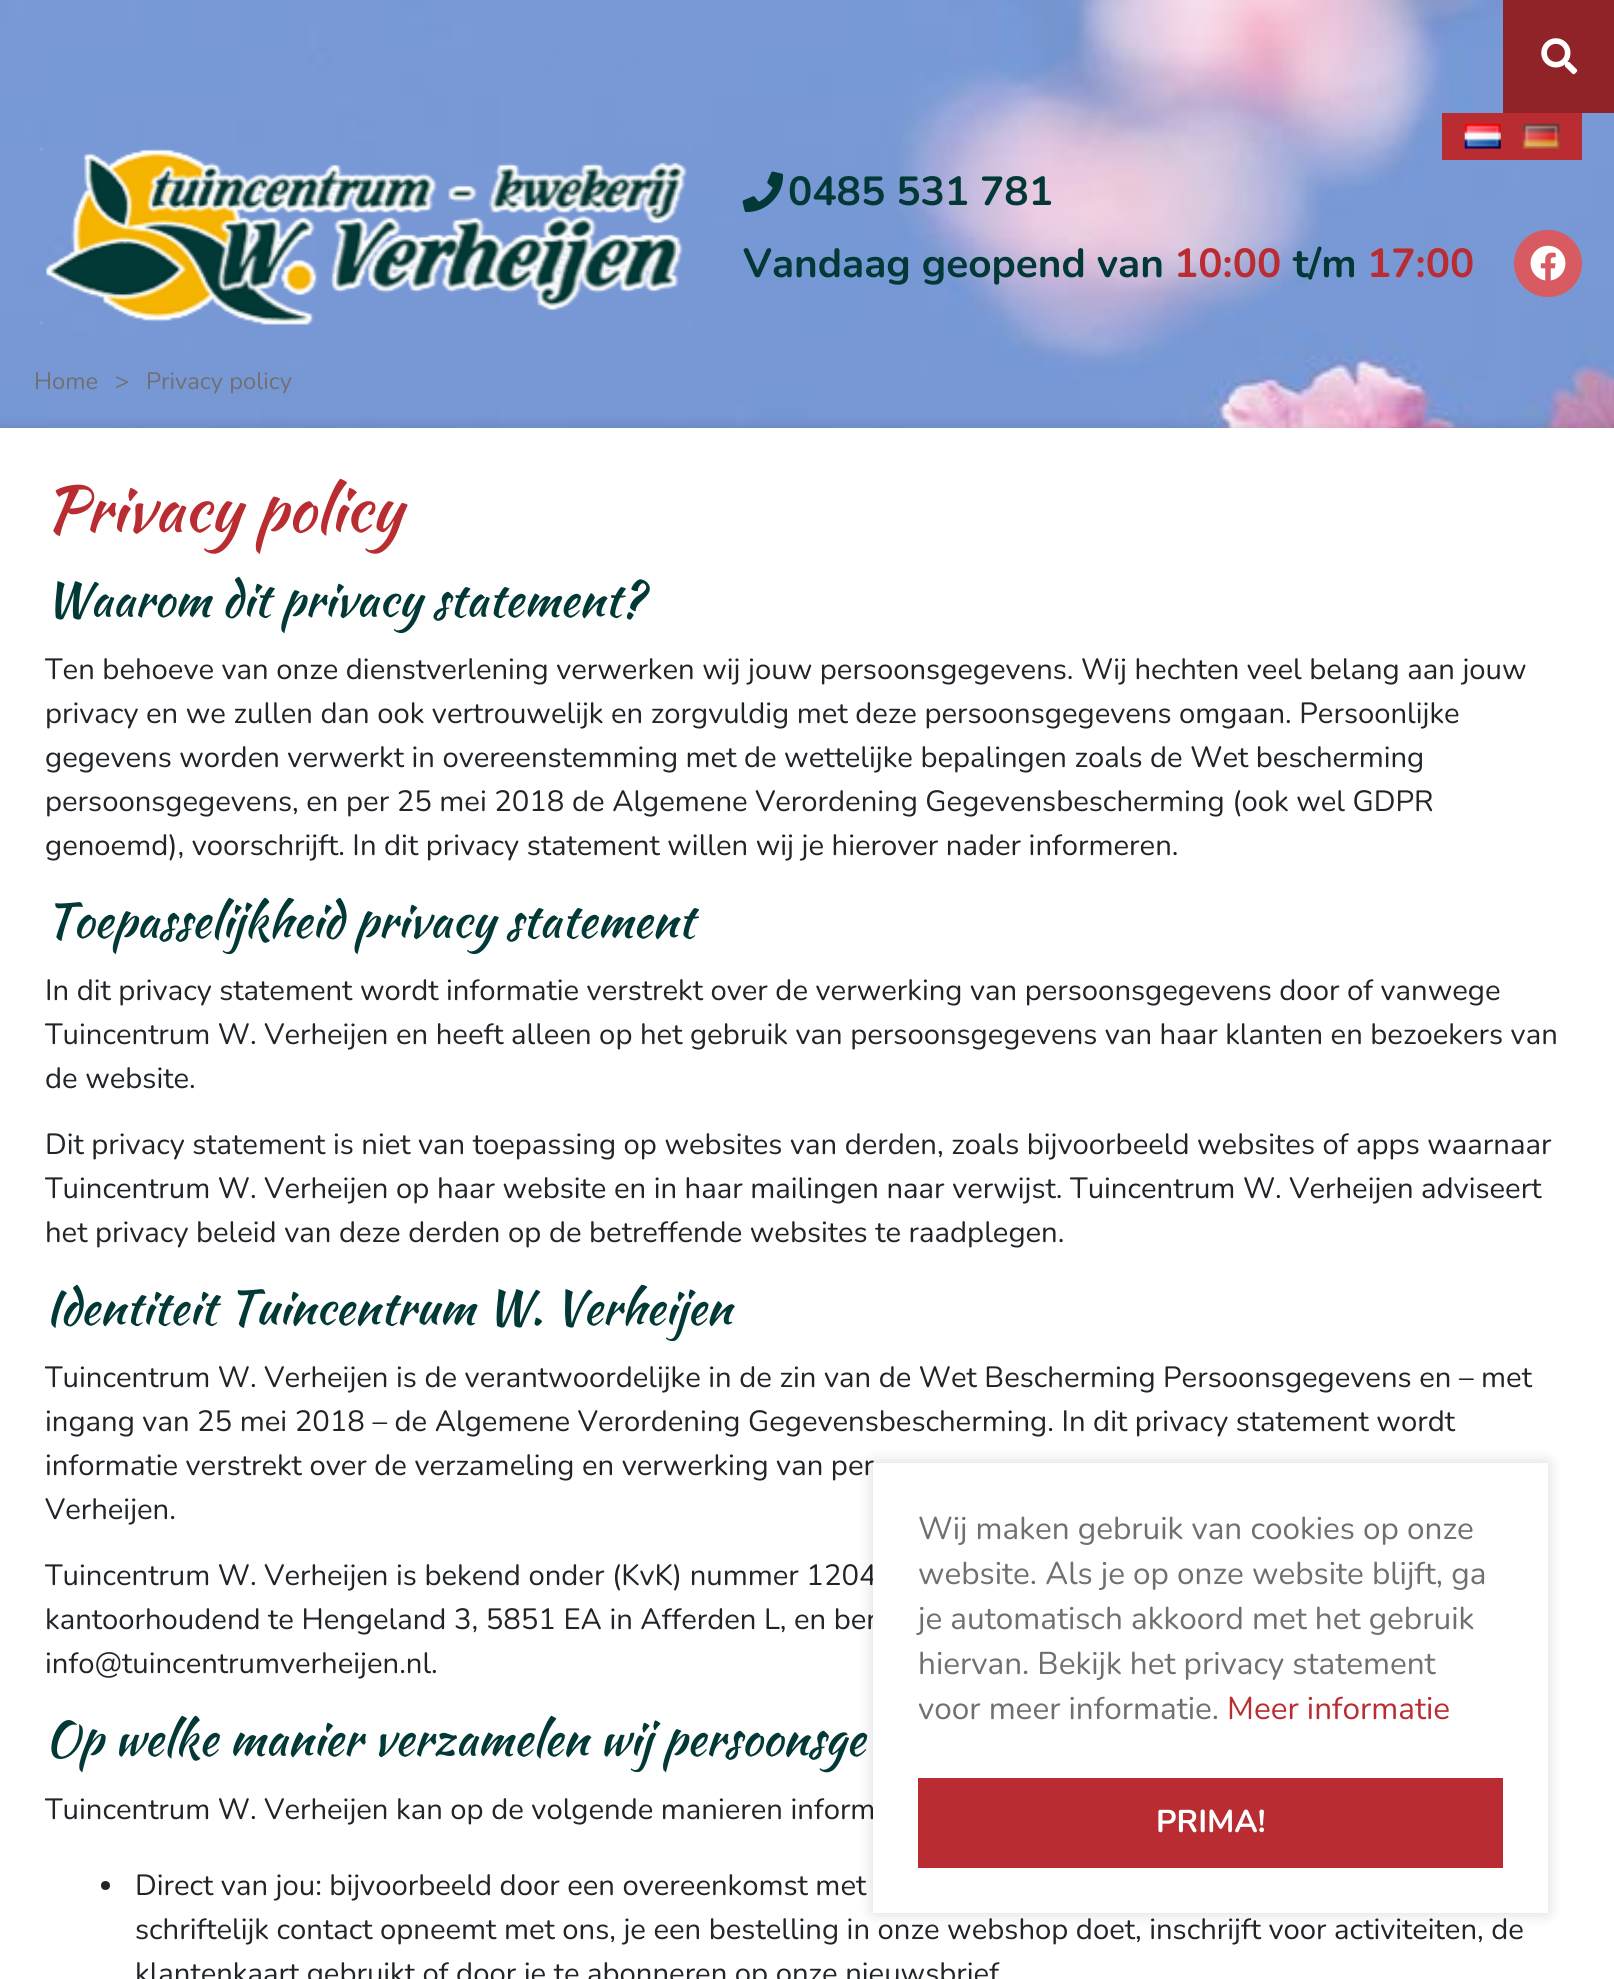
import math
import cairo

surface = cairo.ImageSurface(cairo.FORMAT_RGB24, 1614, 1979)
c = cairo.Context(surface)
options = cairo.FontOptions()
options.set_hint_metrics(cairo.HINT_METRICS_OFF)
options.set_hint_style(cairo.HINT_STYLE_NONE)
c.set_font_options(options)
c.set_miter_limit(4)
def C(code):
 c.set_source_rgb(*(v / 255 for v in bytes.fromhex(code[-6:])))
def F(family, size, italic, bold):
 c.select_font_face(family, cairo.FONT_SLANT_ITALIC if italic else cairo.FONT_SLANT_NORMAL, cairo.FONT_WEIGHT_BOLD if bold else cairo.FONT_WEIGHT_NORMAL)
 c.set_font_size(size)
def T(x, y, s):
 c.move_to(x, y)
 c.show_text(s)
def R(x, y, w, h):
 c.rectangle(x, y, w, h)
 c.fill()
def Q(x, y, w, h, r):
 c.new_sub_path()
 for i, (u, v) in enumerate([(x + w - r, y + h - r), (x + r, y + h - r), (x + r, y + r), (x + w - r, y + r)]):
  c.arc(u, v, r, i * math.pi / 2, (i + 1) * math.pi / 2)
 c.close_path()
def S(x, y, w, h, r, blur, alpha):
 c.push_group_with_content(cairo.CONTENT_ALPHA)
 c.set_operator(cairo.OPERATOR_SOURCE)
 for i in range(15, -16, -2):
  e = blur * i / 6
  if min(w, h) + 2 * e > 0:
   c.set_source_rgba(0, 0, 0, alpha * math.erfc((i - 1) / 8.5) / 2)
   Q(x - e, y - e, w + 2 * e, h + 2 * e, max(0, min(r + e + blur * .6, min(w, h) / 2 + e)))
   c.fill()
 c.mask(c.pop_group())
def I(path, x, y, w, h):
 c.save()
 c.set_source_surface(cairo.ImageSurface.create_from_png(path), x, y)
 c.rectangle(x, y, w, h)
 c.fill()
 c.restore()
C('ffffff')
c.paint()
I('1.png',0,0,1614,428)
C('b92d32')
R(1442,113,140,47)
I('2.png',1464,123,37,26)
I('3.png',1522,123,38,26)
I('4.png',39,148,653,177)
I('5.png',742,171,42,42)
F('Nunito',40.5,0,1)
C('023936')
T(788,205,'0485 531 781')
T(743,277,'Vandaag geopend van')
C('b92d32')
T(1174,277,'10:00')
C('023936')
T(1293,277,'t/m')
C('b92d32')
T(1367,277,'17:00')
C('d75b60')
Q(1514,230,68,67,33.5)
c.fill()
I('6.png',1530,245,36,36)
C('000000')
S(0,428,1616,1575,0,8,.15)
C('ffffff')
R(0,428,1614,1551)
F('Kaushan Script',63,0,0)
C('b92d32')
T(45,531,'Privacy policy')
F('Kaushan Script',47.25,0,0)
C('023936')
T(45,616,'Waarom dit privacy statement?')
F('Nunito',29.25,0,0)
C('212529')
T(45,679,'Ten behoeve van onze dienstverlening verwerken wij jouw persoonsgegevens. Wij hechten veel belang aan jouw')
T(45,723,'privacy en we zullen dan ook vertrouwelijk en zorgvuldig met deze persoonsgegevens omgaan. Persoonlijke')
T(45,767,'gegevens worden verwerkt in overeenstemming met de wettelijke bepalingen zoals de Wet bescherming')
T(45,811,'persoonsgegevens, en per 25 mei 2018 de Algemene Verordening Gegevensbescherming (ook wel GDPR')
T(45,855,'genoemd), voorschrijft. In dit privacy statement willen wij je hierover nader informeren.')
F('Kaushan Script',47.25,0,0)
C('023936')
T(45,937,'Toepasselijkheid privacy statement')
F('Nunito',29.25,0,0)
C('212529')
T(45,1000,'In dit privacy statement wordt informatie verstrekt over de verwerking van persoonsgegevens door of vanwege')
T(45,1044,'Tuincentrum W. Verheijen en heeft alleen op het gebruik van persoonsgegevens van haar klanten en bezoekers van')
T(45,1088,'de website.')
T(45,1154,'Dit privacy statement is niet van toepassing op websites van derden, zoals bijvoorbeeld websites of apps waarnaar')
T(45,1198,'Tuincentrum W. Verheijen op haar website en in haar mailingen naar verwijst. Tuincentrum W. Verheijen adviseert')
T(45,1242,'het privacy beleid van deze derden op de betreffende websites te raadplegen.')
F('Kaushan Script',47.25,0,0)
C('023936')
T(45,1324,'Identiteit Tuincentrum W. Verheijen')
F('Nunito',29.25,0,0)
C('212529')
T(45,1387,'Tuincentrum W. Verheijen is de verantwoordelijke in de zin van de Wet Bescherming Persoonsgegevens en – met')
T(45,1431,'ingang van 25 mei 2018 – de Algemene Verordening Gegevensbescherming. In dit privacy statement wordt')
T(45,1475,'informatie verstrekt over de verzameling en verwerking van per')
T(45,1519,'Verheijen.')
T(45,1585,'Tuincentrum W. Verheijen is bekend onder (KvK) nummer 1204')
T(45,1629,'kantoorhoudend te Hengeland 3, 5851 EA in Afferden L, en ber')
T(45,1673,'info@tuincentrumverheijen.nl.')
F('Kaushan Script',47.25,0,0)
C('023936')
T(45,1755,'Op welke manier verzamelen wij persoonsge')
F('Nunito',29.25,0,0)
C('212529')
T(45,1819,'Tuincentrum W. Verheijen kan op de volgende manieren inform')
c.new_path()
c.arc(105.5,1885.5,4.5,0,2 * math.pi)
c.fill()
T(135,1895,'Direct van jou: bijvoorbeeld door een overeenkomst met')
T(135,1939,'schriftelijk contact opneemt met ons, je een bestelling in onze webshop doet, inschrijft voor activiteiten, de')
T(135,1983,'klantenkaart gebruikt of door je te abonneren op onze nieuwsbrief')
C('902327')
R(1503,0,111,113)
I('7.png',1541,38,37,37)
F('Nunito',23.75,0,0)
C('707070')
T(34,389,'Home')
T(115,389,'>')
T(146,389,'Privacy policy')
C('000000')
S(873,1463,675,450,0,8,.15)
C('ffffff')
R(873,1463,675,450)
F('Nunito',31.5,0,0)
C('707070')
T(918,1539,'Wij maken gebruik van cookies op onze')
T(918,1584,'website. Als je op onze website blijft, ga')
T(918,1629,'je automatisch akkoord met het gebruik')
T(918,1674,'hiervan. Bekijk het privacy statement')
T(918,1719,'voor meer informatie.')
C('b92d32')
T(1227,1719,'Meer informatie')
R(918,1778,585,90)
F('Nunito',31.5,0,1)
C('ffffff')
T(1156,1832,'PRIMA!')
surface.write_to_png('o.png')
